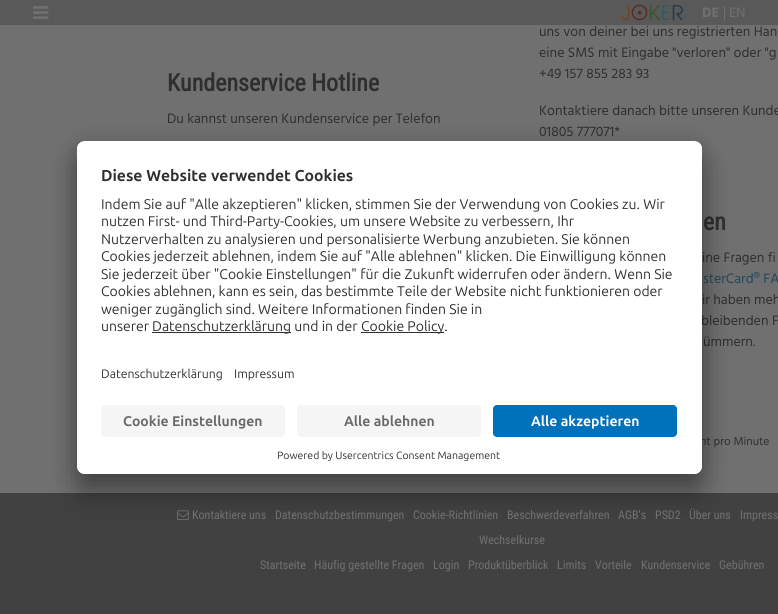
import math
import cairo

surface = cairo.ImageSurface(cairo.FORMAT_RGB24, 778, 614)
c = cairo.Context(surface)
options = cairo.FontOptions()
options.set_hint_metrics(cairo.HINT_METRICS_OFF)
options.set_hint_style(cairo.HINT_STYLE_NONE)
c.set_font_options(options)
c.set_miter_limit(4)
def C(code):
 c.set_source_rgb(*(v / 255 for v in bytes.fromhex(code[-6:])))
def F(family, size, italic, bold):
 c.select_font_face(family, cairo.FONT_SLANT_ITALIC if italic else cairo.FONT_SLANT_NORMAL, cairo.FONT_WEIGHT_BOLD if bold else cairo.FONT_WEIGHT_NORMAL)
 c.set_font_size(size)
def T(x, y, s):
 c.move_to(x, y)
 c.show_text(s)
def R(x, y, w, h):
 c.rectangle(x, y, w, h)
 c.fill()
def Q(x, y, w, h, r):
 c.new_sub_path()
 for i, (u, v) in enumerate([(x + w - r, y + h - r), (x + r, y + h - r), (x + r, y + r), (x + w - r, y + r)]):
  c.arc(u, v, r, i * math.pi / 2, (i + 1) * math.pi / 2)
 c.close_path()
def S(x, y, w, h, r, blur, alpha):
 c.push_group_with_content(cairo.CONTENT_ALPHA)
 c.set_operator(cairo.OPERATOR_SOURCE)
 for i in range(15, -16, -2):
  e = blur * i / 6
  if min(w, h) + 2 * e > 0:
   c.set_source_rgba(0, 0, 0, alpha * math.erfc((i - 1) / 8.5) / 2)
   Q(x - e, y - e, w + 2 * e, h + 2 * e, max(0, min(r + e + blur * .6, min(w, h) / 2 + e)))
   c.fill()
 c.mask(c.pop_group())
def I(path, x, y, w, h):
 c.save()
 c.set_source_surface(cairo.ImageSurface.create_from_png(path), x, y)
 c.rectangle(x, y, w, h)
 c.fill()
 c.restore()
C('707070')
c.paint()
C('595959')
R(0,0,778,25)
I('1.png',33,6,16,13)
I('2.png',621,4,62,17)
C('707070')
R(724,6,1,15)
F('Hind',14,0,1)
T(702,17,'DE')
F('Hind',14,0,0)
T(729,17,'EN')
F('Roboto Condensed',24,0,1)
C('2e2f30')
T(167,91,'Kundenservice Hotline')
F('Hind',14,0,0)
T(167,123,'Du kannst unseren Kundenservice per Telefon')
T(539,36,'uns von deiner bei uns registrierten Han')
T(539,57,'eine SMS mit Eingabe "verloren" oder "g')
T(539,78,'+49 157 855 283 93')
T(539,115,'Kontaktiere danach bitte unseren Kunde')
T(539,136,'01805 777071*')
F('Roboto Condensed',24,0,1)
T(703,230,'en')
F('Hind',14,0,0)
T(702,262,'ine Fragen fi')
C('24465c')
T(703,283,'sterCard® FA')
C('2e2f30')
T(702,304,'ir haben meh')
T(701,325,'bleibenden F')
T(703,346,'ümmern.')
F('Hind',11.75,0,0)
T(700,445,'nt pro Minute')
C('414141')
R(0,493,778,121)
I('3.png',177,510,12,10)
C('000000')
S(77,161,625,333,8,14,.3)
S(77,146,625,333,8,13,.22)
C('ffffff')
Q(77,141,625,333,8)
c.fill()
c.save()
Q(77,141,625,333,8)
c.clip()
c.new_path()
c.move_to(85,141)
c.line_to(694,141)
c.curve_to(698.5,141,702,144.5,702,149)
c.line_to(702,397)
c.line_to(77,397)
c.line_to(77,149)
c.curve_to(77,144.5,80.5,141,85,141)
c.close_path()
c.clip()
R(77,142,625,255)
c.restore()
F('Ubuntu',15.75,0,1)
C('2e2f30')
T(101,181,'Diese Website verwendet Cookies')
F('Ubuntu',14,0,0)
T(101,209,'Indem Sie auf "Alle akzeptieren" klicken, stimmen Sie der Verwendung von Cookies zu. Wir')
T(101,226,'nutzen First- und Third-Party-Cookies, um unsere Website zu verbessern, Ihr')
T(101,244,'Nutzerverhalten zu analysieren und personalisierte Werbung anzubieten. Sie können')
T(101,261,'Cookies jederzeit ablehnen, indem Sie auf "Alle ablehnen" klicken. Die Einwilligung können')
T(101,279,'Sie jederzeit über "Cookie Einstellungen" für die Zukunft widerrufen oder ändern. Wenn Sie')
T(101,296,'Cookies ablehnen, kann es sein, das bestimmte Teile der Website nicht funktionieren oder')
T(101,314,'weniger zugänglich sind. Weitere Informationen finden Sie in')
T(101,331,'unserer')
C('303030')
R(152,332,139,1)
C('2e2f30')
T(152,331,'Datenschutzerklärung und in der')
C('303030')
R(361,332,83,1)
C('2e2f30')
T(361,331,'Cookie Policy.')
F('Ubuntu',12.25,0,0)
T(101,378,'Datenschutzerklärung')
T(234,378,'Impressum')
C('ffffff')
c.new_path()
c.move_to(77,397)
c.line_to(702,397)
c.line_to(702,466)
c.curve_to(702,470.5,698.5,474,694,474)
c.line_to(85,474)
c.curve_to(80.5,474,77,470.5,77,466)
c.close_path()
c.fill()
C('f5f5f5')
Q(101,405,184,32,4)
c.fill()
F('Ubuntu',14,0,1)
C('696969')
T(123,426,'Cookie Einstellungen')
C('f5f5f5')
Q(297,405,184,32,4)
c.fill()
C('696969')
T(344,426,'Alle ablehnen')
C('0072bc')
Q(493,405,184,32,4)
c.fill()
C('ffffff')
T(531,426,'Alle akzeptieren')
F('Ubuntu',10.5,0,0)
C('2e2f30')
T(277,459,'Powered by Usercentrics Consent Management')
F('Roboto Condensed',12,0,0)
C('707070')
T(192,519,'Kontaktiere uns')
T(275,519,'Datenschutzbestimmungen')
T(413,519,'Cookie-Richtlinien')
T(507,519,'Beschwerdeverfahren')
T(618,519,'AGB\'s')
T(655,519,'PSD2')
T(689,519,'Über uns')
T(740,519,'Impress')
T(479,544,'Wechselkurse')
T(260,569,'Startseite')
T(314,569,'Häufig gestellte Fragen')
T(433,569,'Login')
T(468,569,'Produktüberblick')
T(557,569,'Limits')
T(595,569,'Vorteile')
T(641,569,'Kundenservice')
T(719,569,'Gebühren')
surface.write_to_png('o.png')
